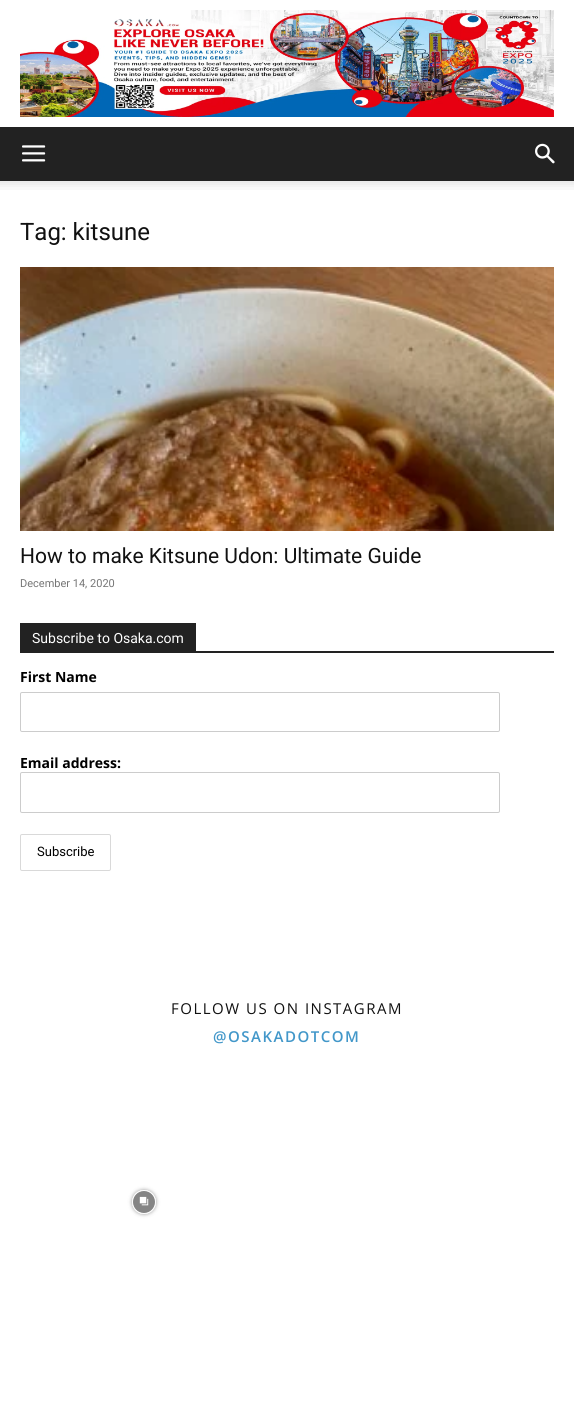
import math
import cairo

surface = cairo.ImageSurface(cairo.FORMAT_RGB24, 574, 1407)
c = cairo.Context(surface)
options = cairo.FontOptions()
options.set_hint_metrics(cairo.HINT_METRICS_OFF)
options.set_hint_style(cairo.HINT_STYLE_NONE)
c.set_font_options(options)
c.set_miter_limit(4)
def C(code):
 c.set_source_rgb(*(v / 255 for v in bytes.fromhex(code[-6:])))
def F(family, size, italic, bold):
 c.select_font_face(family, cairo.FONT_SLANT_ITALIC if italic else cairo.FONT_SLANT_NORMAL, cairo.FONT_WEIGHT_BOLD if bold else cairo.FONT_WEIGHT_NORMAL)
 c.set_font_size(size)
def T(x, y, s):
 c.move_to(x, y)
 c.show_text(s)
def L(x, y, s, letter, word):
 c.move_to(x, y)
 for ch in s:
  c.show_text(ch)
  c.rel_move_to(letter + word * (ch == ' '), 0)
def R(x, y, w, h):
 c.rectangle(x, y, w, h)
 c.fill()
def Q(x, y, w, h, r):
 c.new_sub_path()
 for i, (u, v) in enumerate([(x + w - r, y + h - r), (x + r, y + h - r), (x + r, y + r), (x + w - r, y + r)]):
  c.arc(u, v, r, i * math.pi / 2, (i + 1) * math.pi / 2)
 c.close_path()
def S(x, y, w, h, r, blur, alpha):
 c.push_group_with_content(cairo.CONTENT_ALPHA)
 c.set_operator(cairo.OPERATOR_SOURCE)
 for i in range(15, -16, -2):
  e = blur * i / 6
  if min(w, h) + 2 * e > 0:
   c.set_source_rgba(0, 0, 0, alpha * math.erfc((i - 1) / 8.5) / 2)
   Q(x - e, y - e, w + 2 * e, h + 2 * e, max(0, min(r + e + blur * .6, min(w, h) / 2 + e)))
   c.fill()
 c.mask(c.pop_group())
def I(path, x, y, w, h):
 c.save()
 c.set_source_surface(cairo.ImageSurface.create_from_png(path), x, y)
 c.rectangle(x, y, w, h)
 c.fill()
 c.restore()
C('ffffff')
c.paint()
I('1.png',20,10,534,107)
C('222222')
R(0,127,574,54)
I('2.png',22,145,24,17)
I('3.png',535,143,20,21)
I('4.png',0,181,574,9)
F('Roboto',24,0,0)
C('111111')
T(20,240,'Tag: kitsune')
I('5.png',20,267,534,264)
F('Roboto',21,0,0)
T(20,563,'How to make Kitsune Udon: Ultimate Guide')
F('Roboto',11,0,0)
C('767676')
T(20,587,'December 14, 2020')
C('222222')
R(20,651,534,2)
R(20,623,176,28)
F('Roboto',14,0,0)
C('ffffff')
T(32,643,'Subscribe to Osaka.com')
F('Open Sans',14,0,1)
C('000000')
T(20,682,'First Name')
Q(20.5,692.5,479,39,1.5)
C('cccccc')
c.set_line_width(1)
c.stroke()
C('000000')
T(20,768,'Email address:')
Q(20.5,772.5,479,40,1.5)
C('cccccc')
c.stroke()
Q(20.5,834.5,90,36,1.5)
C('d9d9d9')
c.stroke()
F('Roboto',13,0,0)
C('000000')
T(37,856,'Subscribe')
F('Open Sans',15,0,0)
C('111111')
L(171,1014,'FOLLOW US ON INSTAGRAM',1.5,0)
F('Open Sans SemiBold',15,0,0)
C('4297c9')
L(213,1042,'@OSAKADOTCOM',1.5,0)
c.save()
c.set_fill_rule(cairo.FILL_RULE_EVEN_ODD)
c.new_path()
c.move_to(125,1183)
c.line_to(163,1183)
c.line_to(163,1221)
c.line_to(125,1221)
c.close_path()
c.move_to(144,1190)
c.curve_to(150.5,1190,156,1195.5,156,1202)
c.curve_to(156,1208.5,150.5,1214,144,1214)
c.curve_to(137.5,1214,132,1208.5,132,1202)
c.curve_to(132,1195.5,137.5,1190,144,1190)
c.close_path()
c.clip()
C('000000')
S(132,1190,24,24,12,2,.4)
c.restore()
c.set_source_rgba(0,0,0,0.48)
c.arc(144,1202,11.5,0,2 * math.pi)
c.fill_preserve()
C('ffffff')
c.stroke()
I('6.png',139,1196,10,10)
surface.write_to_png('o.png')
